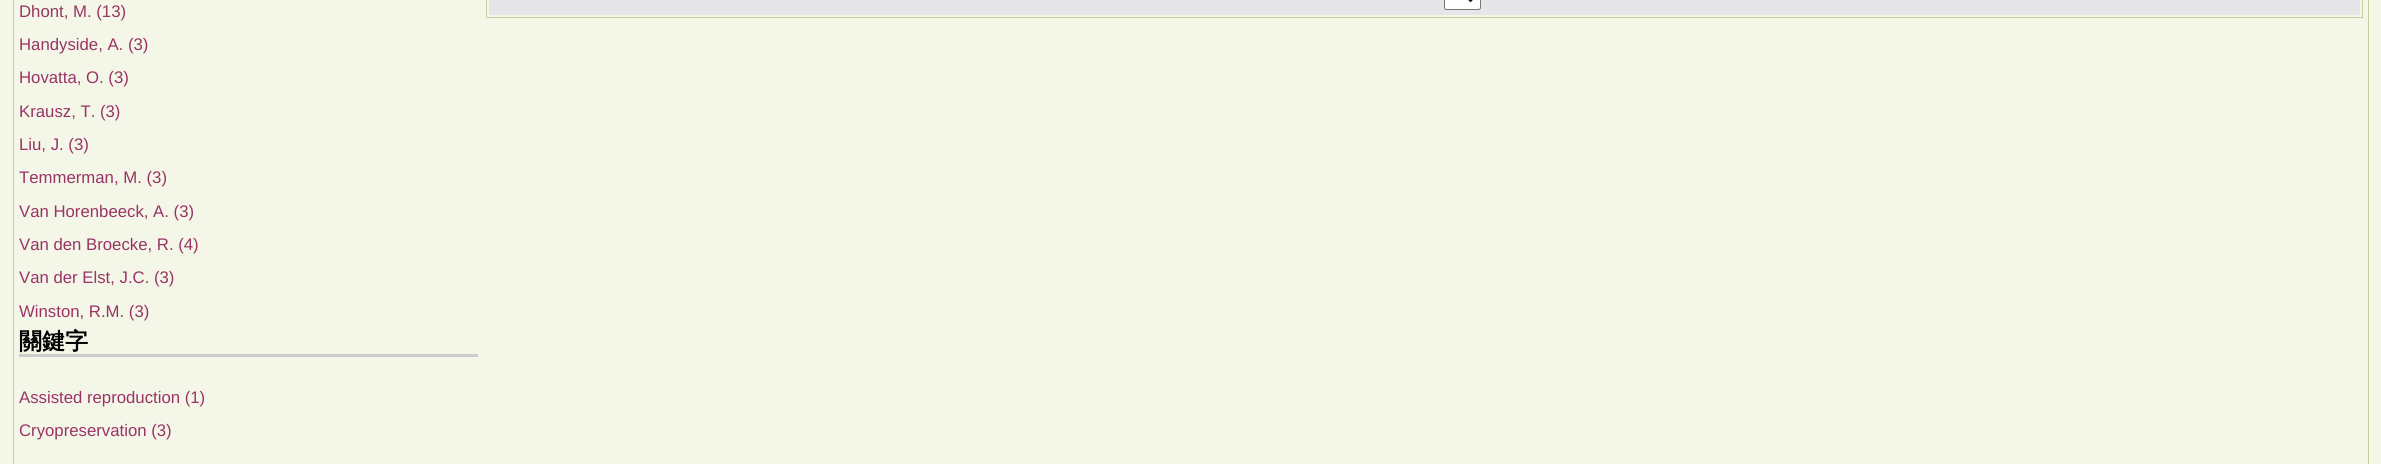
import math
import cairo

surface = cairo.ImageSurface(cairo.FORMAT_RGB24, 2381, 464)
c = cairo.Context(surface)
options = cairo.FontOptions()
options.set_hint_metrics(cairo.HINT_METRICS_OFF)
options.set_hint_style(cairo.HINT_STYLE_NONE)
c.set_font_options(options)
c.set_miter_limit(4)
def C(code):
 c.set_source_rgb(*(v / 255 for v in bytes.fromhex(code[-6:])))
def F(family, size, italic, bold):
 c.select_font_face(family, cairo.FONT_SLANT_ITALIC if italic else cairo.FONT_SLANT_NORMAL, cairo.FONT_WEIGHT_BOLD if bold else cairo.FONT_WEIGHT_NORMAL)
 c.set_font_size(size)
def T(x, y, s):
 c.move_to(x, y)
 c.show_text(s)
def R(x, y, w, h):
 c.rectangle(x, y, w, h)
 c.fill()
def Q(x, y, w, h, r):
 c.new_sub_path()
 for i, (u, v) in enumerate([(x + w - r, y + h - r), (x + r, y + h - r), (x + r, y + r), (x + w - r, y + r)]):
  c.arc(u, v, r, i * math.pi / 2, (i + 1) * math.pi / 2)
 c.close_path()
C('f4f7e7')
c.paint()
c.rectangle(13.5,-.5,2355,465)
C('c5cf9b')
c.set_line_width(1)
c.stroke()
F('Liberation Sans',16.75,0,0)
C('993366')
T(19,17,'Dhont, M. (13)')
T(19,50,'Handyside, A. (3)')
T(19,83,'Hovatta, O. (3)')
T(19,117,'Krausz, T. (3)')
T(19,150,'Liu, J. (3)')
T(19,183,'Temmerman, M. (3)')
T(19,217,'Van Horenbeeck, A. (3)')
T(19,250,'Van den Broecke, R. (4)')
T(19,283,'Van der Elst, J.C. (3)')
T(19,317,'Winston, R.M. (3)')
C('cccccc')
R(19,354,459,3)
F('WenQuanYi Zen Hei',23,0,1)
C('000000')
T(19,349,'關鍵字')
F('Liberation Sans',16.75,0,0)
C('993366')
T(19,403,'Assisted reproduction (1)')
T(19,436,'Cryopreservation (3)')
c.rectangle(486.5,-.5,1876,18)
C('c5cf9b')
c.stroke()
C('e6e6ea')
R(489,0,1871,15)
C('ffffff')
Q(1444.5,-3.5,36,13,2)
c.fill_preserve()
C('767676')
c.stroke()
c.new_path()
c.move_to(1465.5,-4.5)
c.line_to(1470.5,.5)
c.line_to(1475.5,-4.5)
C('000000')
c.set_line_width(2.5)
c.stroke()
surface.write_to_png('o.png')
